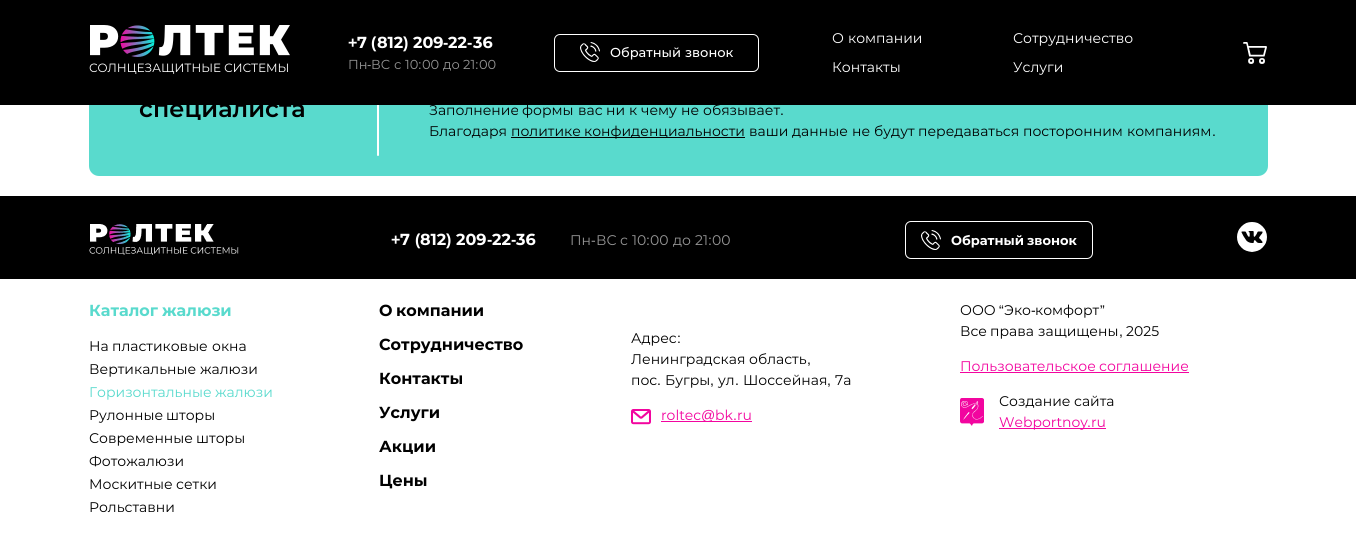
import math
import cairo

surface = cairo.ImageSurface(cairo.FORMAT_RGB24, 1356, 539)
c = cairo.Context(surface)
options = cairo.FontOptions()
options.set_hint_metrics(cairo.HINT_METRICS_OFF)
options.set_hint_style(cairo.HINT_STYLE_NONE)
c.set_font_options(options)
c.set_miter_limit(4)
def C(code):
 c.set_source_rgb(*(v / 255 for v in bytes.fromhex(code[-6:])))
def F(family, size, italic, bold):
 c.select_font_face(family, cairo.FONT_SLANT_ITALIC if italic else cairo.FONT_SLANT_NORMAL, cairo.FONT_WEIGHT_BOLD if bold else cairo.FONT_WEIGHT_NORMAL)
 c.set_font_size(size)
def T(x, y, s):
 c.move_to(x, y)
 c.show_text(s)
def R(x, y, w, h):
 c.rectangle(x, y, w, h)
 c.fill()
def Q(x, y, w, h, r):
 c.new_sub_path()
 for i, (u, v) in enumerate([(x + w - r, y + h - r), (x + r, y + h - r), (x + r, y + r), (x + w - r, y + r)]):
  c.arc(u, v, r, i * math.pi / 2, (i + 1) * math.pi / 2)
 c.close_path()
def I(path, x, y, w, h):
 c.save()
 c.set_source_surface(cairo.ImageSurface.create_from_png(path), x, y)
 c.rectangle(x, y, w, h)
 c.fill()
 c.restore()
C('ffffff')
c.paint()
C('59dacd')
Q(89,-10,1179,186,10)
c.fill()
C('ffffff')
Q(377,2,2,154,1)
c.fill()
C('000000')
R(0,0,1356,105)
I('1.png',89,25,201,49)
F('Liberation Sans',16,0,1)
C('ffffff')
T(348,48,'+')
F('Montserrat',16,0,1)
T(357,48,'7')
F('Liberation Sans',16,0,1)
T(371,48,'(')
F('Montserrat',16,0,1)
T(377,48,'812')
F('Liberation Sans',16,0,1)
T(403,48,')')
F('Montserrat',16,0,1)
T(413,48,'209')
F('Liberation Sans',16,0,1)
T(443,48,'-')
F('Montserrat',16,0,1)
T(448,48,'22')
F('Liberation Sans',16,0,1)
T(467,48,'-')
F('Montserrat',16,0,1)
T(473,48,'36')
F('Montserrat',13,0,0)
C('959595')
T(348,69,'Пн')
F('Liberation Sans',13,0,0)
T(367,69,'-')
F('Montserrat',13,0,0)
T(371,69,'ВС')
T(394,69,'с')
T(405,69,'10')
F('Liberation Sans',13,0,0)
T(418,69,':')
F('Montserrat',13,0,0)
T(422,69,'00')
T(443,69,'до')
T(463,69,'21')
F('Liberation Sans',13,0,0)
T(475,69,':')
F('Montserrat',13,0,0)
T(479,69,'00')
Q(554.5,34.5,204,37,5.5)
C('ffffff')
c.set_line_width(1)
c.stroke()
I('2.png',580,42,20,20)
F('Montserrat Medium',13,0,0)
T(610,57,'Обратный')
T(685,57,'звонок')
F('Montserrat',14,0,0)
T(832,43,'О')
T(848,43,'компании')
T(1013,43,'Сотрудничество')
T(832,72,'Контакты')
T(1013,72,'Услуги')
I('3.png',1243,42,24,22)
F('Montserrat SemiBold',24,0,0)
C('000000')
T(139,117,'специалиста')
F('Montserrat',14,0,0)
T(429,115,'Заполнение')
T(522,115,'формы')
T(578,115,'вас')
T(606,115,'ни')
T(629,115,'к')
T(641,115,'чему')
T(681,115,'не')
T(703,115,'обязывает')
F('Liberation Sans',14,0,0)
T(780,115,'.')
F('Montserrat',14,0,0)
T(429,136,'Благодаря')
T(511,136,'политике')
R(511,137,234,1)
T(584,136,'конфиденциальности')
T(749,136,'ваши')
T(792,136,'данные')
T(852,136,'не')
T(874,136,'будут')
T(918,136,'передаваться')
T(1023,136,'посторонним')
T(1127,136,'компаниям')
F('Liberation Sans',14,0,0)
T(1212,136,'.')
R(0,196,1356,83)
I('4.png',89,224,150,31)
F('Liberation Sans',16,0,1)
C('ffffff')
T(391,245,'+')
F('Montserrat',16,0,1)
T(400,245,'7')
F('Liberation Sans',16,0,1)
T(415,245,'(')
F('Montserrat',16,0,1)
T(420,245,'812')
F('Liberation Sans',16,0,1)
T(446,245,')')
F('Montserrat',16,0,1)
T(456,245,'209')
F('Liberation Sans',16,0,1)
T(487,245,'-')
F('Montserrat',16,0,1)
T(492,245,'22')
F('Liberation Sans',16,0,1)
T(511,245,'-')
F('Montserrat',16,0,1)
T(516,245,'36')
F('Montserrat',14,0,0)
C('959595')
T(570,245,'Пн')
F('Liberation Sans',14,0,0)
T(591,245,'-')
F('Montserrat',14,0,0)
T(596,245,'ВС')
T(620,245,'с')
T(632,245,'10')
F('Liberation Sans',14,0,0)
T(646,245,':')
F('Montserrat',14,0,0)
T(650,245,'00')
T(673,245,'до')
T(695,245,'21')
F('Liberation Sans',14,0,0)
T(708,245,':')
F('Montserrat',14,0,0)
T(712,245,'00')
Q(905.5,221.5,187,37,5.5)
C('ffffff')
c.stroke()
I('5.png',921,230,20,20)
F('Montserrat',13,0,1)
T(951,245,'Обратный')
T(1027,245,'звонок')
I('6.png',1237,222,30,30)
F('Montserrat',16,0,1)
C('59dacd')
T(89,316,'Каталог')
T(162,316,'жалюзи')
F('Montserrat',14,0,0)
C('000000')
T(89,351,'На')
T(112,351,'пластиковые')
T(212,351,'окна')
T(89,374,'Вертикальные')
T(200,374,'жалюзи')
C('59dacd')
T(89,397,'Горизонтальные')
T(215,397,'жалюзи')
C('000000')
T(89,420,'Рулонные')
T(166,420,'шторы')
T(89,443,'Современные')
T(196,443,'шторы')
T(89,466,'Фотожалюзи')
T(89,489,'Москитные')
T(176,489,'сетки')
T(89,512,'Рольставни')
F('Montserrat',16,0,1)
T(379,316,'О')
T(396,316,'компании')
T(379,350,'Сотрудничество')
T(379,384,'Контакты')
T(379,418,'Услуги')
T(379,452,'Акции')
T(379,486,'Цены')
F('Montserrat',14,0,0)
T(631,343,'Адрес')
F('Liberation Sans',14,0,0)
T(677,343,':')
F('Montserrat',14,0,0)
T(631,364,'Ленинградская')
T(749,364,'область')
F('Liberation Sans',14,0,0)
T(807,364,',')
F('Montserrat',14,0,0)
T(631,385,'пос')
F('Liberation Sans',14,0,0)
T(657,385,'.')
F('Montserrat',14,0,0)
T(665,385,'Бугры')
F('Liberation Sans',14,0,0)
T(710,385,',')
F('Montserrat',14,0,0)
T(718,385,'ул')
F('Liberation Sans',14,0,0)
T(735,385,'.')
F('Montserrat',14,0,0)
T(743,385,'Шоссейная')
F('Liberation Sans',14,0,0)
T(827,385,',')
F('Montserrat',14,0,0)
T(835,385,'7а')
I('7.png',631,409,20,16)
C('f2059f')
T(661,420,'roltec')
R(661,421,91,1)
F('Liberation Sans',14,0,0)
T(701,420,'@')
F('Montserrat',14,0,0)
T(715,420,'bk')
F('Liberation Sans',14,0,0)
T(733,420,'.')
F('Montserrat',14,0,0)
T(737,420,'ru')
C('000000')
T(960,315,'ООО')
F('Liberation Sans',14,0,0)
T(999,315,'“')
F('Montserrat',14,0,0)
T(1004,315,'Эко')
T(1035,315,'комфорт')
F('Liberation Sans',14,0,0)
T(1100,315,'”')
T(1031,315,'-')
F('Montserrat',14,0,0)
T(960,336,'Все')
T(990,336,'права')
T(1038,336,'защищены')
F('Liberation Sans',14,0,0)
T(1119,336,',')
F('Montserrat',14,0,0)
T(1126,336,'2025')
C('f2059f')
T(960,371,'Пользовательское')
T(1099,371,'соглашение')
R(960,372,229,1)
I('8.png',960,398,24,28)
C('000000')
T(999,406,'Создание')
T(1074,406,'сайта')
C('f2059f')
R(999,428,107,1)
T(999,427,'Webportnoy')
F('Liberation Sans',14,0,0)
T(1087,427,'.')
F('Montserrat',14,0,0)
T(1091,427,'ru')
surface.write_to_png('o.png')
